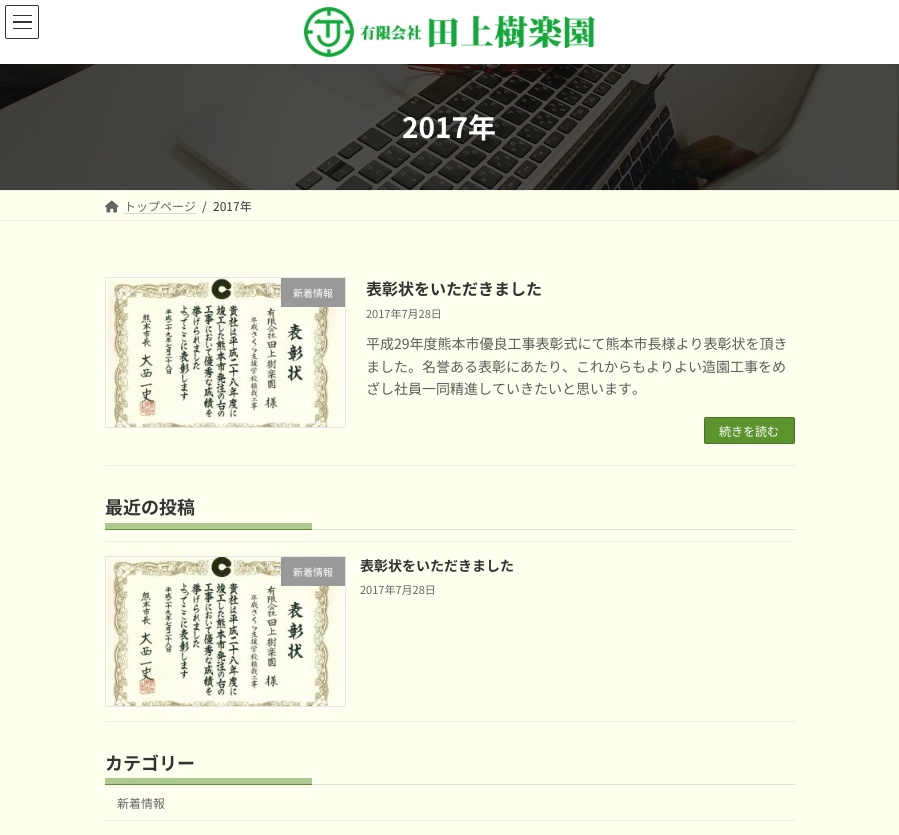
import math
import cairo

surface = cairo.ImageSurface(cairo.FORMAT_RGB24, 899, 835)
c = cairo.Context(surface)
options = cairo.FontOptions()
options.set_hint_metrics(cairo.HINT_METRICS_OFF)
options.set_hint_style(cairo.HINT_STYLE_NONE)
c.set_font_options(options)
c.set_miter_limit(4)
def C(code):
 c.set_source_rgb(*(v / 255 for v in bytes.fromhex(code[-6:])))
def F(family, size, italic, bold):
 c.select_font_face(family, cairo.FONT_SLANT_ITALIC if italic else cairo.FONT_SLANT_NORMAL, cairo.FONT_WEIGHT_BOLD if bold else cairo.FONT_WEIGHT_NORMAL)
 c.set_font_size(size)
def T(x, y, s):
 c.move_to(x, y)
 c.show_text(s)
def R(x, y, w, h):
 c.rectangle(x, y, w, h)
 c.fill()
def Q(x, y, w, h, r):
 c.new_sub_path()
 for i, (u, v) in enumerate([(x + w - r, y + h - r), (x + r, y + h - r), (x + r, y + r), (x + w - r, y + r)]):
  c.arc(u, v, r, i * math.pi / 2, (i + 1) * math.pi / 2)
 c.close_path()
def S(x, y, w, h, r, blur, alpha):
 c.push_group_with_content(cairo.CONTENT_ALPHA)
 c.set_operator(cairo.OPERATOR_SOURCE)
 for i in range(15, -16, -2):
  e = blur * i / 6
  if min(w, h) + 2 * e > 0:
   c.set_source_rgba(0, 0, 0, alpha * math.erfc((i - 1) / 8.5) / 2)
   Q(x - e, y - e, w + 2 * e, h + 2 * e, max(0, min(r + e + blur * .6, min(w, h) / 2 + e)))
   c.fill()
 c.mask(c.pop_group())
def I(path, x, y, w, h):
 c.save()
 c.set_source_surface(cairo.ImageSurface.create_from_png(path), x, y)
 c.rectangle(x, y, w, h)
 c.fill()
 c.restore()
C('ffffef')
c.paint()
C('adc98f')
R(105,778,207,6)
R(105,523,207,6)
I('2.png',0,64,899,126)
C('000000')
S(0,1,899,64,0,1.5,.05)
C('ffffff')
R(0,0,899,64)
I('1.png',304,7,291,50)
C('333333')
R(13,15,19,1)
R(13,21,19,2)
R(13,28,19,1)
Q(5.5,5.5,33,33,1.5)
c.set_line_width(1)
c.stroke()
F('Noto Sans JP',28,0,1)
C('ffffff')
T(402,138,'2017年')
C('f0f0e1')
R(0,190,899,1)
R(0,220,899,1)
I('3.png',105,200,14,13)
F('Noto Sans JP',12,0,0)
C('666666')
T(124,211,'トップページ')
c.new_path()
c.move_to(124.5,213.5)
c.line_to(196.5,213.5)
C('b3b3a7')
c.set_dash([1,1])
c.stroke()
C('333333')
T(202,211,'/')
T(213,211,'2017年')
C('f0f0e1')
R(105,465,690,1)
I('4.png',106,278,239,149)
c.rectangle(105.5,277.5,240,150)
C('e5e5e5')
c.set_dash([])
c.stroke()
C('999999')
R(281,278,64,29)
F('Noto Sans JP',10,0,0)
C('ffffff')
T(293,297,'新着情報')
F('Noto Sans JP',16,0,1)
C('333333')
T(366,295,'表彰状をいただきました')
F('Noto Sans JP',11,0,0)
C('666666')
T(366,318,'2017年7月28日')
F('Noto Sans JP',14,0,0)
C('5c5c59')
T(366,349,'平成29年度熊本市優良工事表彰式にて熊本市長様より表彰状を頂き')
T(366,372,'ました。名誉ある表彰にあたり、これからもよりよい造園工事をめ')
T(366,394,'ざし社員一同精進していきたいと思います。')
C('5b932d')
Q(704.5,417.5,90,26,1.5)
c.fill_preserve()
C('497624')
c.stroke()
F('Noto Sans JP',12,0,0)
C('ffffff')
T(719,436,'続きを読む')
C('e0e0d2')
R(312,529,483,1)
F('Noto Sans JP',18,0,1)
C('333333')
T(105,514,'最近の投稿')
C('5b932d')
R(105,529,207,1)
C('f0f0e1')
R(105,541,690,1)
R(105,721,690,1)
I('5.png',105,555,242,152)
c.rectangle(105.5,556.5,240,150)
C('e5e5e5')
c.stroke()
C('999999')
R(281,557,64,29)
F('Noto Sans JP',10,0,0)
C('ffffff')
T(293,576,'新着情報')
F('Noto Sans JP',14,0,1)
C('333333')
T(360,571,'表彰状をいただきました')
F('Noto Sans JP',11,0,0)
C('666666')
T(360,594,'2017年7月28日')
C('e0e0d2')
R(312,784,483,1)
F('Noto Sans JP',18,0,1)
C('333333')
T(105,770,'カテゴリー')
C('5b932d')
R(105,784,207,1)
C('f0f0e1')
R(105,820,690,1)
F('Noto Sans JP',12,0,0)
C('666666')
T(117,808,'新着情報')
surface.write_to_png('o.png')
